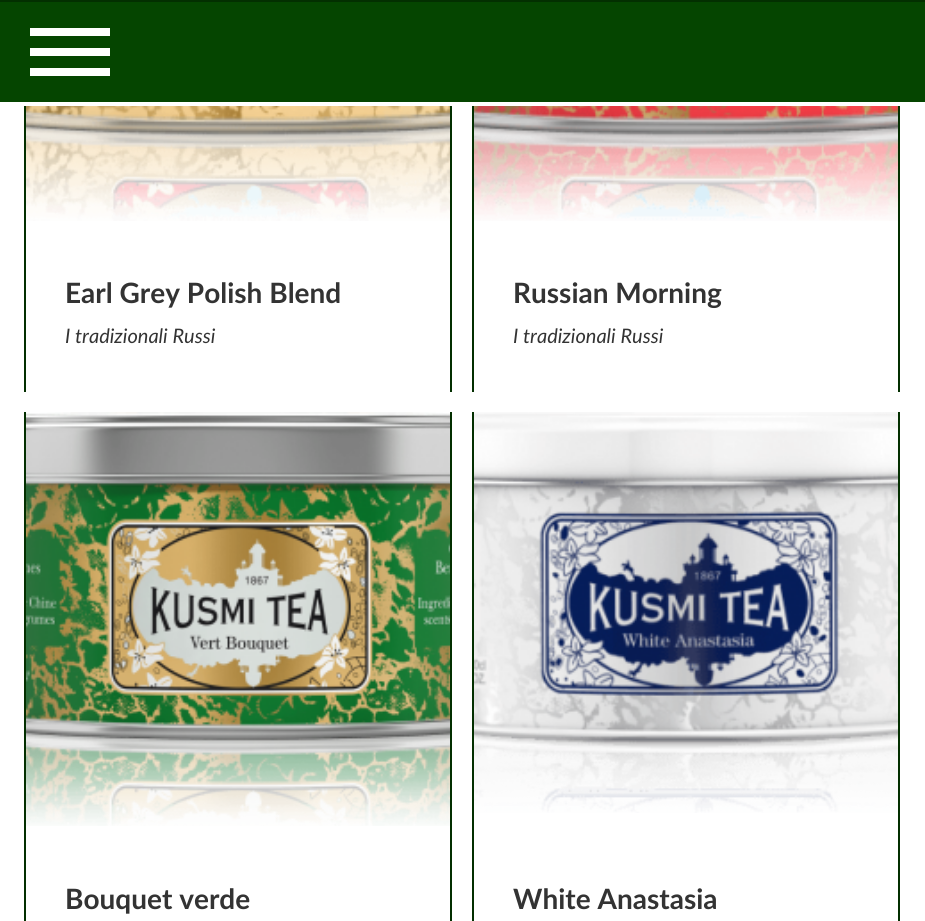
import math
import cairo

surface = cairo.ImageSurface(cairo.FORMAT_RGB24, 925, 921)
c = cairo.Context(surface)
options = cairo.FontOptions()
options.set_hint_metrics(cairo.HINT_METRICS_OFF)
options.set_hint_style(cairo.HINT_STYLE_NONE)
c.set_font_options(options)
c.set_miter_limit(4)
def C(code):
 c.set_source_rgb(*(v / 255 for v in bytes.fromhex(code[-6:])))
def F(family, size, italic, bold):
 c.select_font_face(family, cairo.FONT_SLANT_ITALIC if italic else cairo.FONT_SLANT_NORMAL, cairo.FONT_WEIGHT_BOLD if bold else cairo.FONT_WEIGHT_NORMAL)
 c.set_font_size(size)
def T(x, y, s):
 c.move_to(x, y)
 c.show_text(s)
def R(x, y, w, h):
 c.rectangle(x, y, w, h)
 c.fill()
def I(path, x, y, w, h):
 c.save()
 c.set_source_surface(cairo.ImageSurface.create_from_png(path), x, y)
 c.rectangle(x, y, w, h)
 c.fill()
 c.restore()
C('ffffff')
c.paint()
C('054500')
R(0,2,925,100)
C('032f00')
R(0,0,925,2)
C('ffffff')
R(30,28,80,8)
R(30,48,80,8)
R(30,68,80,8)
C('032f00')
R(450,106,2,286)
R(24,106,2,286)
I('1.png',26,106,424,115)
F('Lato',28,0,1)
C('333333')
T(65,303,'Earl Grey Polish Blend')
F('Lato',20,1,0)
T(65,343,'I tradizionali Russi')
C('032f00')
R(898,106,2,286)
R(472,106,2,286)
I('2.png',474,106,424,115)
F('Lato',28,0,1)
C('333333')
T(513,303,'Russian Morning')
F('Lato',20,1,0)
T(513,343,'I tradizionali Russi')
C('032f00')
R(450,412,2,509)
R(24,412,2,509)
I('3.png',26,412,424,414)
F('Lato',28,0,1)
C('333333')
T(65,909,'Bouquet verde')
C('032f00')
R(898,412,2,509)
R(472,412,2,509)
I('4.png',474,412,424,401)
C('333333')
T(513,909,'White Anastasia')
surface.write_to_png('o.png')
